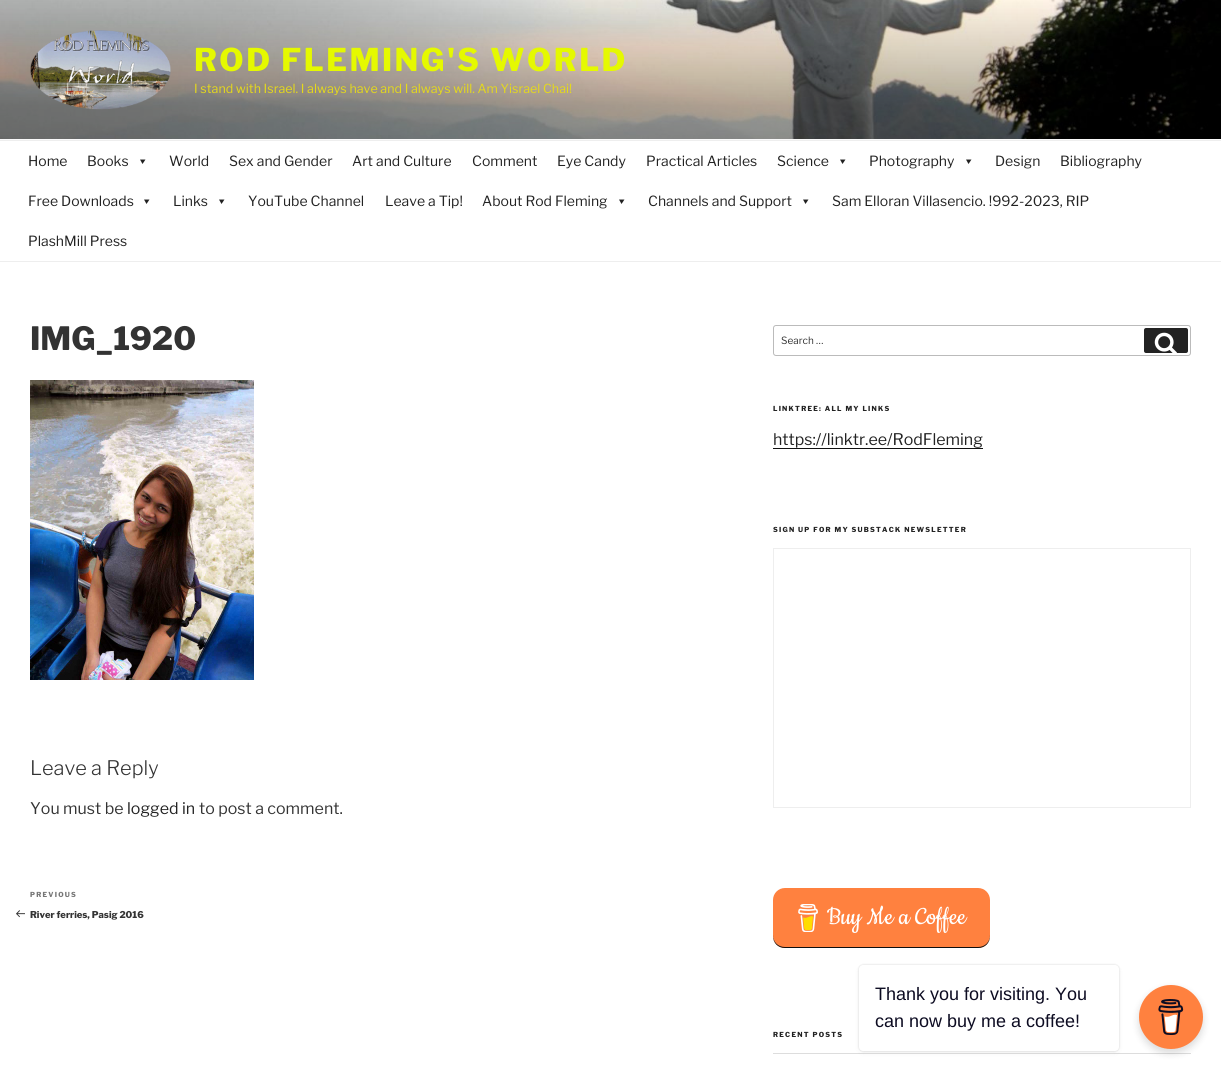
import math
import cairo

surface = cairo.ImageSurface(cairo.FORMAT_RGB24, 1221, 1067)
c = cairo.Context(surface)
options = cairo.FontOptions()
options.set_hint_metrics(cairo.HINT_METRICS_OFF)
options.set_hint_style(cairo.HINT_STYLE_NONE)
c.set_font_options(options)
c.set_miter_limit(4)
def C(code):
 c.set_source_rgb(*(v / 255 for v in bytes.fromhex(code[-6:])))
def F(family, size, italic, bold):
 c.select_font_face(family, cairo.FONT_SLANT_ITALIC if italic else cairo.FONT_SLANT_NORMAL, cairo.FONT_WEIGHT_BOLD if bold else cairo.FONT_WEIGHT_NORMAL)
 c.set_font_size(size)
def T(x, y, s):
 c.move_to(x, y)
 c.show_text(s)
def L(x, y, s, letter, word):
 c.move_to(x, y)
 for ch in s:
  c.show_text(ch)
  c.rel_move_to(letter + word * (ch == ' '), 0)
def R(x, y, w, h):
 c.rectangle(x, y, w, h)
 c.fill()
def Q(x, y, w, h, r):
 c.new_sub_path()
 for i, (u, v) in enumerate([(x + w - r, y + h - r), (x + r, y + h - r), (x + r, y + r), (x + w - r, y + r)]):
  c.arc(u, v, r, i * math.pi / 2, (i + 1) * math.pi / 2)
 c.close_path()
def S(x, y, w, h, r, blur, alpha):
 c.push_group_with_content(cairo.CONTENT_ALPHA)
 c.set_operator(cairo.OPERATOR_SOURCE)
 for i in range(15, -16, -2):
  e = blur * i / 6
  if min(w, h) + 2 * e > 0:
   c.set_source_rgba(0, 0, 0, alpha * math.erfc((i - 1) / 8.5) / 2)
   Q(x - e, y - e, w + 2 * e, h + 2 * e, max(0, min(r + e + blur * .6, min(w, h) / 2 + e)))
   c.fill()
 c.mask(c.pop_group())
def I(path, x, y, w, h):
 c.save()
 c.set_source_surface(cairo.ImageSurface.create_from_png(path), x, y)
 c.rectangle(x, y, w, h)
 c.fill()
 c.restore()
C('ffffff')
c.paint()
C('fafafa')
R(0,139,1221,1)
I('1.png',0,0,1221,139)
I('2.png',30,30,141,80)
F('Libre Franklin Thin',31.25,0,0)
C('e5f900')
L(194,71,'ROD FLEMING\'S WORLD',2.5,0)
F('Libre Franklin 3 Thin',12.5,0,0)
C('e5d91b')
T(194,93,'I stand with Israel. I always have and I always will. Am Yisrael Chai!')
C('eeeeee')
R(0,140,1221,1)
R(0,261,1221,1)
F('Libre Franklin 3 Thin',14,0,0)
C('222222')
T(28,166,'Home')
T(87,166,'Books')
c.new_path()
c.move_to(145.5,159.5)
c.line_to(142.5,164)
c.line_to(140,159.5)
c.close_path()
c.fill()
T(169,166,'World')
T(229,166,'Sex and Gender')
T(352,166,'Art and Culture')
T(472,166,'Comment')
T(557,166,'Eye Candy')
T(646,166,'Practical Articles')
T(777,166,'Science')
c.new_path()
c.move_to(845.5,159.5)
c.line_to(842.5,164)
c.line_to(840,159.5)
c.close_path()
c.fill()
T(869,166,'Photography')
c.new_path()
c.move_to(971.5,159.5)
c.line_to(968.5,164)
c.line_to(966,159.5)
c.close_path()
c.fill()
T(995,166,'Design')
T(1060,166,'Bibliography')
T(28,206,'Free Downloads')
c.new_path()
c.move_to(149.5,199.5)
c.line_to(146.5,204)
c.line_to(144,199.5)
c.close_path()
c.fill()
T(173,206,'Links')
c.new_path()
c.move_to(224.5,199.5)
c.line_to(221.5,204)
c.line_to(219,199.5)
c.close_path()
c.fill()
T(248,206,'YouTube Channel')
T(385,206,'Leave a Tip!')
T(482,206,'About Rod Fleming')
c.new_path()
c.move_to(624.5,199.5)
c.line_to(621.5,204)
c.line_to(619,199.5)
c.close_path()
c.fill()
T(648,206,'Channels and Support')
c.new_path()
c.move_to(808.5,199.5)
c.line_to(805.5,204)
c.line_to(803,199.5)
c.close_path()
c.fill()
T(832,206,'Sam Elloran Villasencio. !992-2023, RIP')
T(28,246,'PlashMill Press')
F('Libre Franklin Thin',32,0,0)
C('333333')
T(30,350,'IMG_1920')
I('3.png',30,380,224,300)
F('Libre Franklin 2 Thin',20,0,0)
T(30,775,'Leave a Reply')
F('Libre Franklin 3 Thin',16,0,0)
T(30,814,'You must be')
C('222222')
T(127,814,'logged in')
C('333333')
T(199,814,'to post a comment.')
F('Libre Franklin Thin',6.9,0,0)
C('767676')
L(30,897,'PREVIOUS',1.25,0)
I('4.png',16,910,9,8)
F('Libre Franklin Thin',9.4,0,0)
C('333333')
T(30,918,'River ferries, Pasig 2016')
Q(773.5,325.5,417,30,2.5)
C('bbbbbb')
c.set_line_width(1)
c.stroke()
F('Libre Franklin 3 Thin',10,0,0)
C('333333')
T(781,344,'Search …')
C('222222')
Q(1144,328,44,25,2)
c.fill()
I('5.png',1154,332,23,21)
F('Libre Franklin Thin',6.9,0,0)
L(773,411,'LINKTREE: ALL MY LINKS',1.25,0)
F('Libre Franklin 3 Thin',16,0,0)
T(773,445,'https://linktr.ee/RodFleming')
C('0f0f0f')
R(773,448,210,1)
F('Libre Franklin Thin',6.9,0,0)
C('222222')
L(773,532,'SIGN UP FOR MY SUBSTACK NEWSLETTER',1.25,0)
c.rectangle(773.5,548.5,417,259)
C('eeeeee')
c.stroke()
C('ff813f')
Q(773,888,217,60,12)
c.fill()
C('0f0f0f')
c.new_path()
c.move_to(773,935)
c.line_to(773,936)
c.curve_to(773,943,778,948,785,948)
c.line_to(978,948)
c.curve_to(985,948,990,943,990,936)
c.line_to(990,935)
c.curve_to(990,942,985,947,978,947)
c.line_to(785,947)
c.curve_to(778,947,773,942,773,935)
c.close_path()
c.fill()
I('6.png',798,904,20,28)
F('Cookie',28,0,0)
C('ffffff')
T(827,924,'Buy Me a Coffee')
F('Libre Franklin Thin',6.9,0,0)
C('222222')
L(773,1037,'RECENT POSTS',1.25,0)
C('dddddd')
R(773,1053,418,1)
C('000000')
S(1139,989,64,64,32,4,.15)
C('ff813f')
c.arc(1171,1017,32,0,2 * math.pi)
c.fill()
I('7.png',1158,999,26,36)
C('000000')
S(859,965,260,86,4,1,.15)
S(859,967,260,86,4,2.5,.05)
C('ffffff')
Q(859,965,260,86,4)
c.fill()
F('Liberation Sans',18,0,0)
C('0d0c22')
T(875,1000,'Thank you for visiting. You')
T(875,1027,'can now buy me a coffee!')
surface.write_to_png('o.png')
